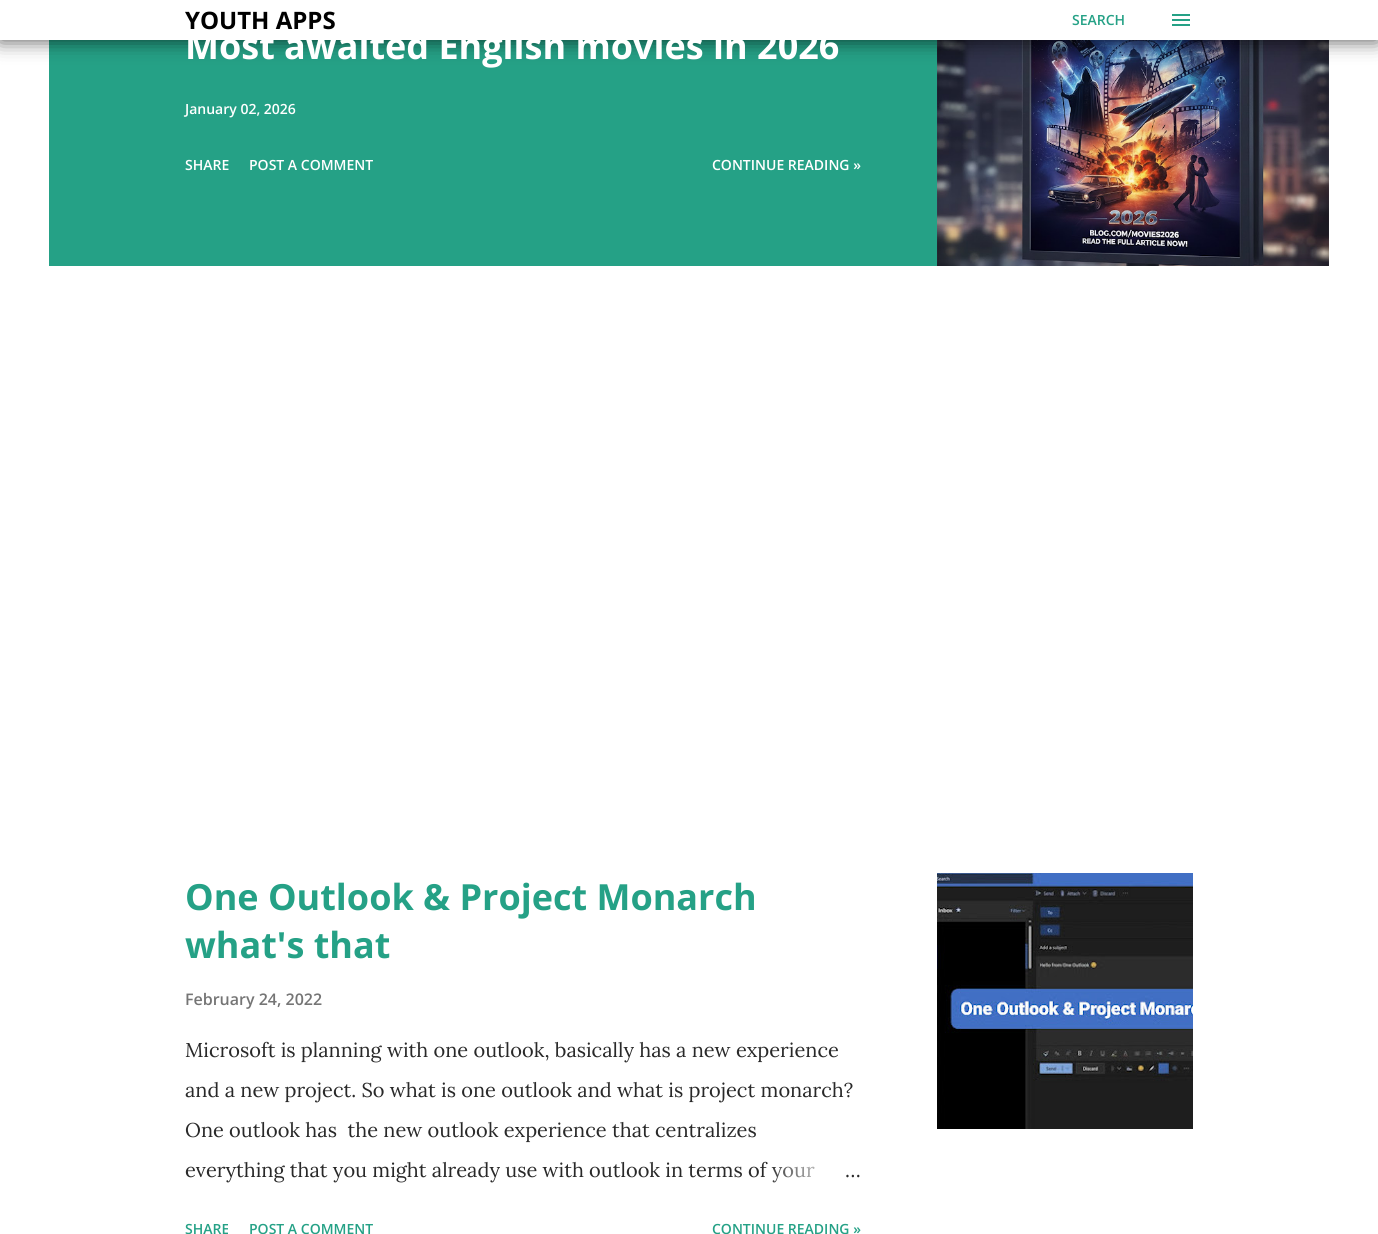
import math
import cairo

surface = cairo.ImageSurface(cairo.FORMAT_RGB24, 1378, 1234)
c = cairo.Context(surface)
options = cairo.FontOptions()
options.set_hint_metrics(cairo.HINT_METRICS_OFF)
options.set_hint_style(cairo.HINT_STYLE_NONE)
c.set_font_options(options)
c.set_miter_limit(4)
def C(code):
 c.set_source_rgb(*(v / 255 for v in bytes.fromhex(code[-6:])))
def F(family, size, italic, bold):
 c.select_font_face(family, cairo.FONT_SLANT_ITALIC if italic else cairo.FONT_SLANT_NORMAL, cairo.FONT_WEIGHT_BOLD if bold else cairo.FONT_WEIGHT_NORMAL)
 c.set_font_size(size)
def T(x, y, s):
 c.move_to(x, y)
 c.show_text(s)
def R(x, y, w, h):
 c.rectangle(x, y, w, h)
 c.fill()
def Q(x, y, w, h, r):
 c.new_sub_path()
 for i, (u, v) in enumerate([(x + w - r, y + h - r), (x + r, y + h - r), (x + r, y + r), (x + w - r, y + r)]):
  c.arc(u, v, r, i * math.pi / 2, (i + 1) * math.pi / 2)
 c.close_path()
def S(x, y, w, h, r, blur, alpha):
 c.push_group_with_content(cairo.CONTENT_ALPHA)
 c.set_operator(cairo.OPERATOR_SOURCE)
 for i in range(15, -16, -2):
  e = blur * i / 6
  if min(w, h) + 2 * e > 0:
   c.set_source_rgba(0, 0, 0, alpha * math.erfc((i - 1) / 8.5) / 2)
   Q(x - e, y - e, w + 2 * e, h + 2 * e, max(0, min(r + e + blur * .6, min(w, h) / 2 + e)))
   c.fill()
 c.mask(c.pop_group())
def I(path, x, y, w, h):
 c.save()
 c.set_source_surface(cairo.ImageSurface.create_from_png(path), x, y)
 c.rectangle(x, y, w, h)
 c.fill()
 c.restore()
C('ffffff')
c.paint()
C('25a186')
R(49,40,888,226)
I('2.png',937,40,392,226)
C('000000')
S(0,0,1378,40,0,10,.7)
C('ffffff')
R(0,0,1378,40)
F('Open Sans',24,0,1)
C('000000')
T(185,29,'YOUTH APPS')
F('Open Sans SemiBold',14,0,0)
C('25a186')
T(1072,25,'SEARCH')
I('1.png',1172,14,18,12)
F('Open Sans',36,0,1)
C('ffffff')
T(185,59,'Most awaited English movies in 2026')
F('Open Sans SemiBold',14,0,0)
T(185,114,'January 02, 2026')
T(185,170,'SHARE')
T(249,170,'POST A COMMENT')
T(712,170,'CONTINUE READING »')
F('Open Sans',36,0,1)
C('25a186')
T(185,910,'One Outlook & Project Monarch')
T(185,958,'what\'s that')
F('Open Sans SemiBold',16,0,0)
C('757575')
T(185,1005,'February 24, 2022')
F('Lora',20,0,0)
C('292929')
T(185,1057,'Microsoft is planning with one outlook, basically has a new experience')
T(185,1097,'and a new project. So what is one outlook and what is project monarch?')
T(185,1137,'One outlook has  the new outlook experience that centralizes')
T(185,1177,'everything that you might already use with outlook in terms of your')
gradient = cairo.LinearGradient(861,1170,765,1170)
gradient.add_color_stop_rgba(0,1,1,1,1)
gradient.add_color_stop_rgba(.2,1,1,1,1)
gradient.add_color_stop_rgba(1,1,1,1,0)
c.set_source(gradient)
R(767,1163,48,20)
C('292929')
T(845,1177,'…')
F('Open Sans SemiBold',14,0,0)
C('25a186')
T(185,1234,'SHARE')
T(249,1234,'POST A COMMENT')
T(712,1234,'CONTINUE READING »')
I('3.png',937,873,256,256)
surface.write_to_png('o.png')
